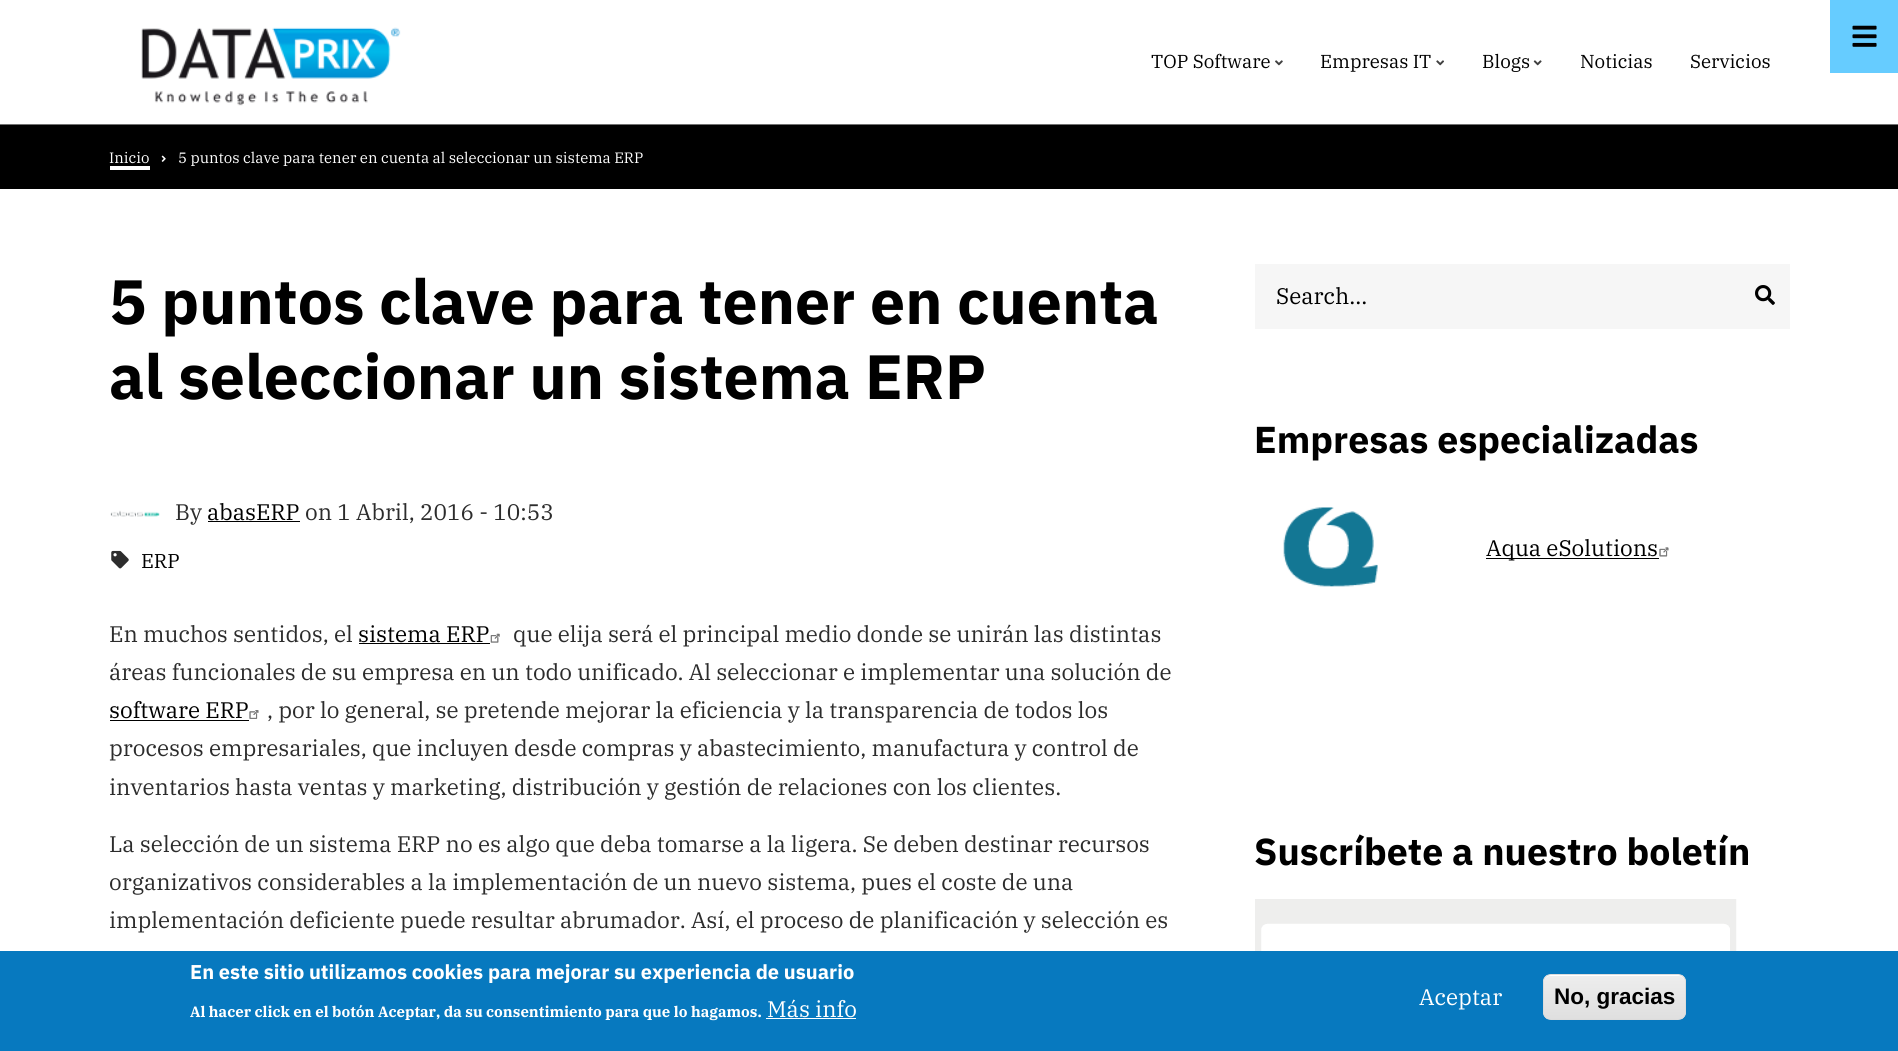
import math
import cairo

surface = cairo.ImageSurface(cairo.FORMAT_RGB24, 1898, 1051)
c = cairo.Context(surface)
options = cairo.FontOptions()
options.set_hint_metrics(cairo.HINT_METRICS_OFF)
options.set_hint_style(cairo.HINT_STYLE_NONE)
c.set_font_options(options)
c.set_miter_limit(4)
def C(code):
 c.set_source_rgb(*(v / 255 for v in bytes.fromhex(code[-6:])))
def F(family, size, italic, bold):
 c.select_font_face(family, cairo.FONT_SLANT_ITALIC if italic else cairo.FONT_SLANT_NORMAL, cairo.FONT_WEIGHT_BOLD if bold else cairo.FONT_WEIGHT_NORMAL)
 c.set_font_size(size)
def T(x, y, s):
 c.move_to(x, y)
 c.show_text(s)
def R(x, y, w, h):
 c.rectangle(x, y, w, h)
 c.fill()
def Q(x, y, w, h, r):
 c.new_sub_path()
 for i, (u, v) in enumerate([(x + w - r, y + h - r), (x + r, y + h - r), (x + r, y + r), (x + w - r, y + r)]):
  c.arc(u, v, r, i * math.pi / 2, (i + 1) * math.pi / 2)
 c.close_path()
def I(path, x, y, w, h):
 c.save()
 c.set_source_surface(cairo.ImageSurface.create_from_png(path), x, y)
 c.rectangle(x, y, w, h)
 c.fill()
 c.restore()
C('ffffff')
c.paint()
C('66ccff')
R(1830,0,68,73)
I('1.png',1852,25,25,22)
C('707070')
R(0,124,1898,1)
I('2.png',141,27,260,79)
F('IBM Plex Serif',18.75,0,0)
C('000000')
T(1151,68,'TOP Software')
I('3.png',1275,60,8,6)
T(1320,68,'Empresas IT')
I('4.png',1436,60,8,6)
T(1482,68,'Blogs')
I('5.png',1533,60,9,6)
T(1580,68,'Noticias')
T(1690,68,'Servicios')
R(0,125,1898,64)
F('IBM Plex Serif',15,0,0)
C('ffffff')
T(109,163,'Inicio')
R(110,166,40,4)
I('6.png',161,155,5,7)
T(178,163,'5 puntos clave para tener en cuenta al seleccionar un sistema ERP')
F('IBM Plex Sans',62.5,0,1)
C('000000')
T(109,324,'5 puntos clave para tener en cuenta')
T(109,399,'al seleccionar un sistema ERP')
I('7.png',110,510,50,7)
F('IBM Plex Serif',22.5,0,0)
C('2c2c2c')
T(175,520,'By')
C('000000')
R(208,521,92,1)
T(207,520,'abasERP')
C('2c2c2c')
T(305,520,'on 1 Abril, 2016 - 10:53')
I('8.png',111,550,18,19)
F('IBM Plex Serif',20,0,0)
C('000000')
T(141,568,'ERP')
F('IBM Plex Serif',22.5,0,0)
C('2c2c2c')
T(109,642,'En muchos sentidos, el')
C('000000')
T(358,642,'sistema ERP')
R(359,643,131,1)
I('9.png',490,633,10,10)
C('2c2c2c')
T(513,642,'que elija será el principal medio donde se unirán las distintas')
T(109,680,'áreas funcionales de su empresa en un todo unificado. Al seleccionar e implementar una solución de')
C('000000')
T(109,718,'software ERP')
R(110,720,139,1)
I('10.png',249,710,10,9)
C('2c2c2c')
T(267,718,', por lo general, se pretende mejorar la eficiencia y la transparencia de todos los')
T(109,756,'procesos empresariales, que incluyen desde compras y abastecimiento, manufactura y control de')
T(109,795,'inventarios hasta ventas y marketing, distribución y gestión de relaciones con los clientes.')
T(109,852,'La selección de un sistema ERP no es algo que deba tomarse a la ligera. Se deben destinar recursos')
T(109,890,'organizativos considerables a la implementación de un nuevo sistema, pues el coste de una')
T(109,928,'implementación deficiente puede resultar abrumador. Así, el proceso de planificación y selección es')
C('f6f6f6')
R(1255,264,535,65)
C('000000')
T(1276,304,'Search...')
I('11.png',1755,285,20,20)
F('IBM Plex Sans',37.5,0,1)
T(1254,453,'Empresas especializadas')
I('12.png',1283,507,95,80)
R(1486,558,173,1)
F('IBM Plex Serif',22.5,0,0)
T(1486,556,'Aqua eSolutions')
I('13.png',1659,547,10,10)
F('IBM Plex Sans',37.5,0,1)
T(1254,865,'Suscríbete a nuestro boletín')
I('14.png',1255,899,482,52)
C('0779bf')
R(0,951,1898,100)
F('IBM Plex Sans',20,0,1)
C('ffffff')
T(190,979,'En este sitio utilizamos cookies para mejorar su experiencia de usuario')
F('IBM Plex Serif',15,0,1)
T(190,1017,'Al hacer click en el botón Aceptar, da su consentimiento para que lo hagamos.')
F('IBM Plex Serif',22.5,0,0)
T(767,1017,'Más info')
R(766,1018,90,1)
T(1419,1005,'Aceptar')
c.save()
Q(1543,974,143,46,8)
c.clip()
gradient = cairo.LinearGradient(1614,975,1614,1019)
gradient.add_color_stop_rgba(.05,0.929,0.929,0.929,1)
gradient.add_color_stop_rgba(1,0.875,0.875,0.875,1)
c.set_source(gradient)
R(1543,975,143,44)
c.restore()
c.new_path()
c.move_to(1550,976)
c.line_to(1679,976)
c.curve_to(1682,976,1685,979,1685,982)
c.curve_to(1685,970,1662,975,1658,975)
c.line_to(1572,975)
c.curve_to(1567,975,1544,970,1544,982)
c.curve_to(1544,979,1547,976,1550,976)
c.close_path()
c.fill()
Q(1543.5,974.5,142,45,7.5)
C('dcdcdc')
c.set_line_width(1)
c.stroke()
F('Liberation Sans',22.5,0,1)
C('000000')
T(1554,1004,'No, gracias')
surface.write_to_png('o.png')
